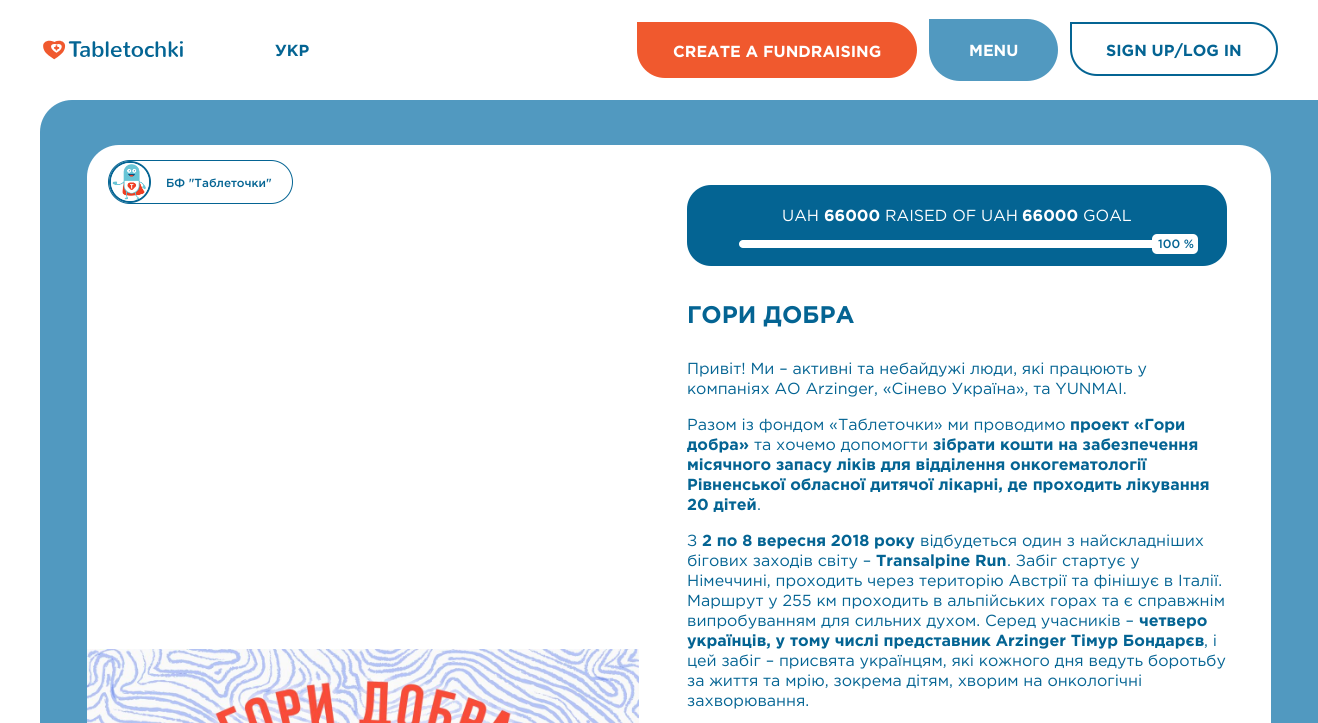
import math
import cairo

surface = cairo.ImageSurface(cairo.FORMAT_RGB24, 1318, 723)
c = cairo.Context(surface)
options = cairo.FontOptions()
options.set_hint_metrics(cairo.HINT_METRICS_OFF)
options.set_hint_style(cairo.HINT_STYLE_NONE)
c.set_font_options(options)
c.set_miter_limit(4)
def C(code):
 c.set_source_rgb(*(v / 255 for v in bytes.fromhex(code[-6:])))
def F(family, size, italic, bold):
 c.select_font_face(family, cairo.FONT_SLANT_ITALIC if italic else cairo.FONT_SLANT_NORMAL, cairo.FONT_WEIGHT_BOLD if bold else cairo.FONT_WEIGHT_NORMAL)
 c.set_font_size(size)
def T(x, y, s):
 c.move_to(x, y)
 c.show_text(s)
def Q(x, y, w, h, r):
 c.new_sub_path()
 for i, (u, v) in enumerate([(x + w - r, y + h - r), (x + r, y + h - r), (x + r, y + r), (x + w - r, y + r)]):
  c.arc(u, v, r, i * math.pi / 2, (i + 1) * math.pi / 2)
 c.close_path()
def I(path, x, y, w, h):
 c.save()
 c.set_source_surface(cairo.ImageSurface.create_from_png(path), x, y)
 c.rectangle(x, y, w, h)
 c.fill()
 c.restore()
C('ffffff')
c.paint()
I('1.png',43,40,140,20)
F('Gotham',16,0,1)
C('046493')
T(275,56,'УКР')
C('f0592e')
c.new_path()
c.move_to(637,22)
c.line_to(889,22)
c.curve_to(904.5,22,917,34.5,917,50)
c.curve_to(917,65.5,904.5,78,889,78)
c.line_to(665,78)
c.curve_to(649.5,78,637,65.5,637,50)
c.close_path()
c.fill()
C('ffffff')
T(673,57,'CREATE A FUNDRAISING')
C('5199c0')
c.new_path()
c.move_to(929,19)
c.line_to(1027,19)
c.curve_to(1044,19,1058,33,1058,50)
c.curve_to(1058,67,1044,81,1027,81)
c.line_to(960,81)
c.curve_to(943,81,929,67,929,50)
c.close_path()
c.fill()
C('ffffff')
T(969,56,'MENU')
c.new_path()
c.move_to(1071,23)
c.line_to(1251,23)
c.curve_to(1265.5,23,1277,34.5,1277,49)
c.curve_to(1277,63.5,1265.5,75,1251,75)
c.line_to(1097,75)
c.curve_to(1082.5,75,1071,63.5,1071,49)
c.close_path()
C('046493')
c.stroke()
T(1106,56,'SIGN UP/LOG IN')
C('5199c0')
c.new_path()
c.move_to(72,100)
c.line_to(1318,100)
c.line_to(1318,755)
c.line_to(72,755)
c.curve_to(54.5,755,40,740.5,40,723)
c.line_to(40,132)
c.curve_to(40,114.5,54.5,100,72,100)
c.close_path()
c.fill()
C('ffffff')
c.new_path()
c.move_to(119,145)
c.line_to(1239,145)
c.curve_to(1256.5,145,1271,159.5,1271,177)
c.line_to(1271,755)
c.line_to(87,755)
c.line_to(87,177)
c.curve_to(87,159.5,101.5,145,119,145)
c.close_path()
c.fill()
Q(108.5,160.5,184,43,21.5)
C('046493')
c.set_line_width(1)
c.stroke()
c.arc(130,182,20,0,2 * math.pi)
c.set_line_width(2)
c.stroke()
I('2.png',111,163,38,38)
F('Gotham Medium',11.75,0,0)
T(166,187,'БФ "Таблеточки"')
I('3.png',87,649,552,74)
Q(687,185,540,81,24)
c.fill()
F('Gotham',16,0,0)
C('ffffff')
T(782,221,'UAH')
F('Gotham',16,0,1)
T(824,221,'66000')
F('Gotham',16,0,0)
T(885,221,'RAISED OF UAH')
F('Gotham',16,0,1)
T(1022,221,'66000')
F('Gotham',16,0,0)
T(1083,221,'GOAL')
Q(739,240,436,8,4)
c.fill()
Q(1152,234,46,20,5)
c.fill()
F('Gotham Medium',12,0,0)
C('046493')
T(1158,248,'100 %')
F('Gotham',24,0,1)
T(687,323,'ГОРИ ДОБРА')
F('Gotham',16,0,0)
T(687,374,'Привіт! Ми – активні та небайдужі люди, які працюють у')
T(687,394,'компаніях АО Arzinger, «Сінево Україна», та YUNMAI.')
T(687,430,'Разом із фондом «Таблеточки» ми проводимо')
F('Gotham',16,0,1)
T(1070,430,'проект «Гори')
T(687,450,'добра»')
F('Gotham',16,0,0)
T(754,450,'та хочемо допомогти')
F('Gotham',16,0,1)
T(933,450,'зібрати кошти на забезпечення')
T(687,470,'місячного запасу ліків для відділення онкогематології')
T(687,490,'Рівненської обласної дитячої лікарні, де проходить лікування')
T(687,510,'20 дітей')
F('Gotham',16,0,0)
T(757,510,'.')
T(687,546,'З')
F('Gotham',16,0,1)
T(702,546,'2 по 8 вересня 2018 року')
F('Gotham',16,0,0)
T(920,546,'відбудеться один з найскладніших')
T(687,566,'бігових заходів світу –')
F('Gotham',16,0,1)
T(876,566,'Transalpine Run')
F('Gotham',16,0,0)
T(1007,566,'. Забіг стартує у')
T(687,586,'Німеччині, проходить через територію Австрії та фінішує в Італії.')
T(687,606,'Маршрут у 255 км проходить в альпійських горах та є справжнім')
T(687,626,'випробуванням для сильних духом. Серед учасників –')
F('Gotham',16,0,1)
T(1139,626,'четверо')
T(687,646,'українців, у тому числі представник Arzinger Тімур Бондарєв')
F('Gotham',16,0,0)
T(1204,646,', і')
T(687,666,'цей забіг – присвята українцям, які кожного дня ведуть боротьбу')
T(687,686,'за життя та мрію, зокрема дітям, хворим на онкологічні')
T(687,706,'захворювання.')
surface.write_to_png('o.png')
